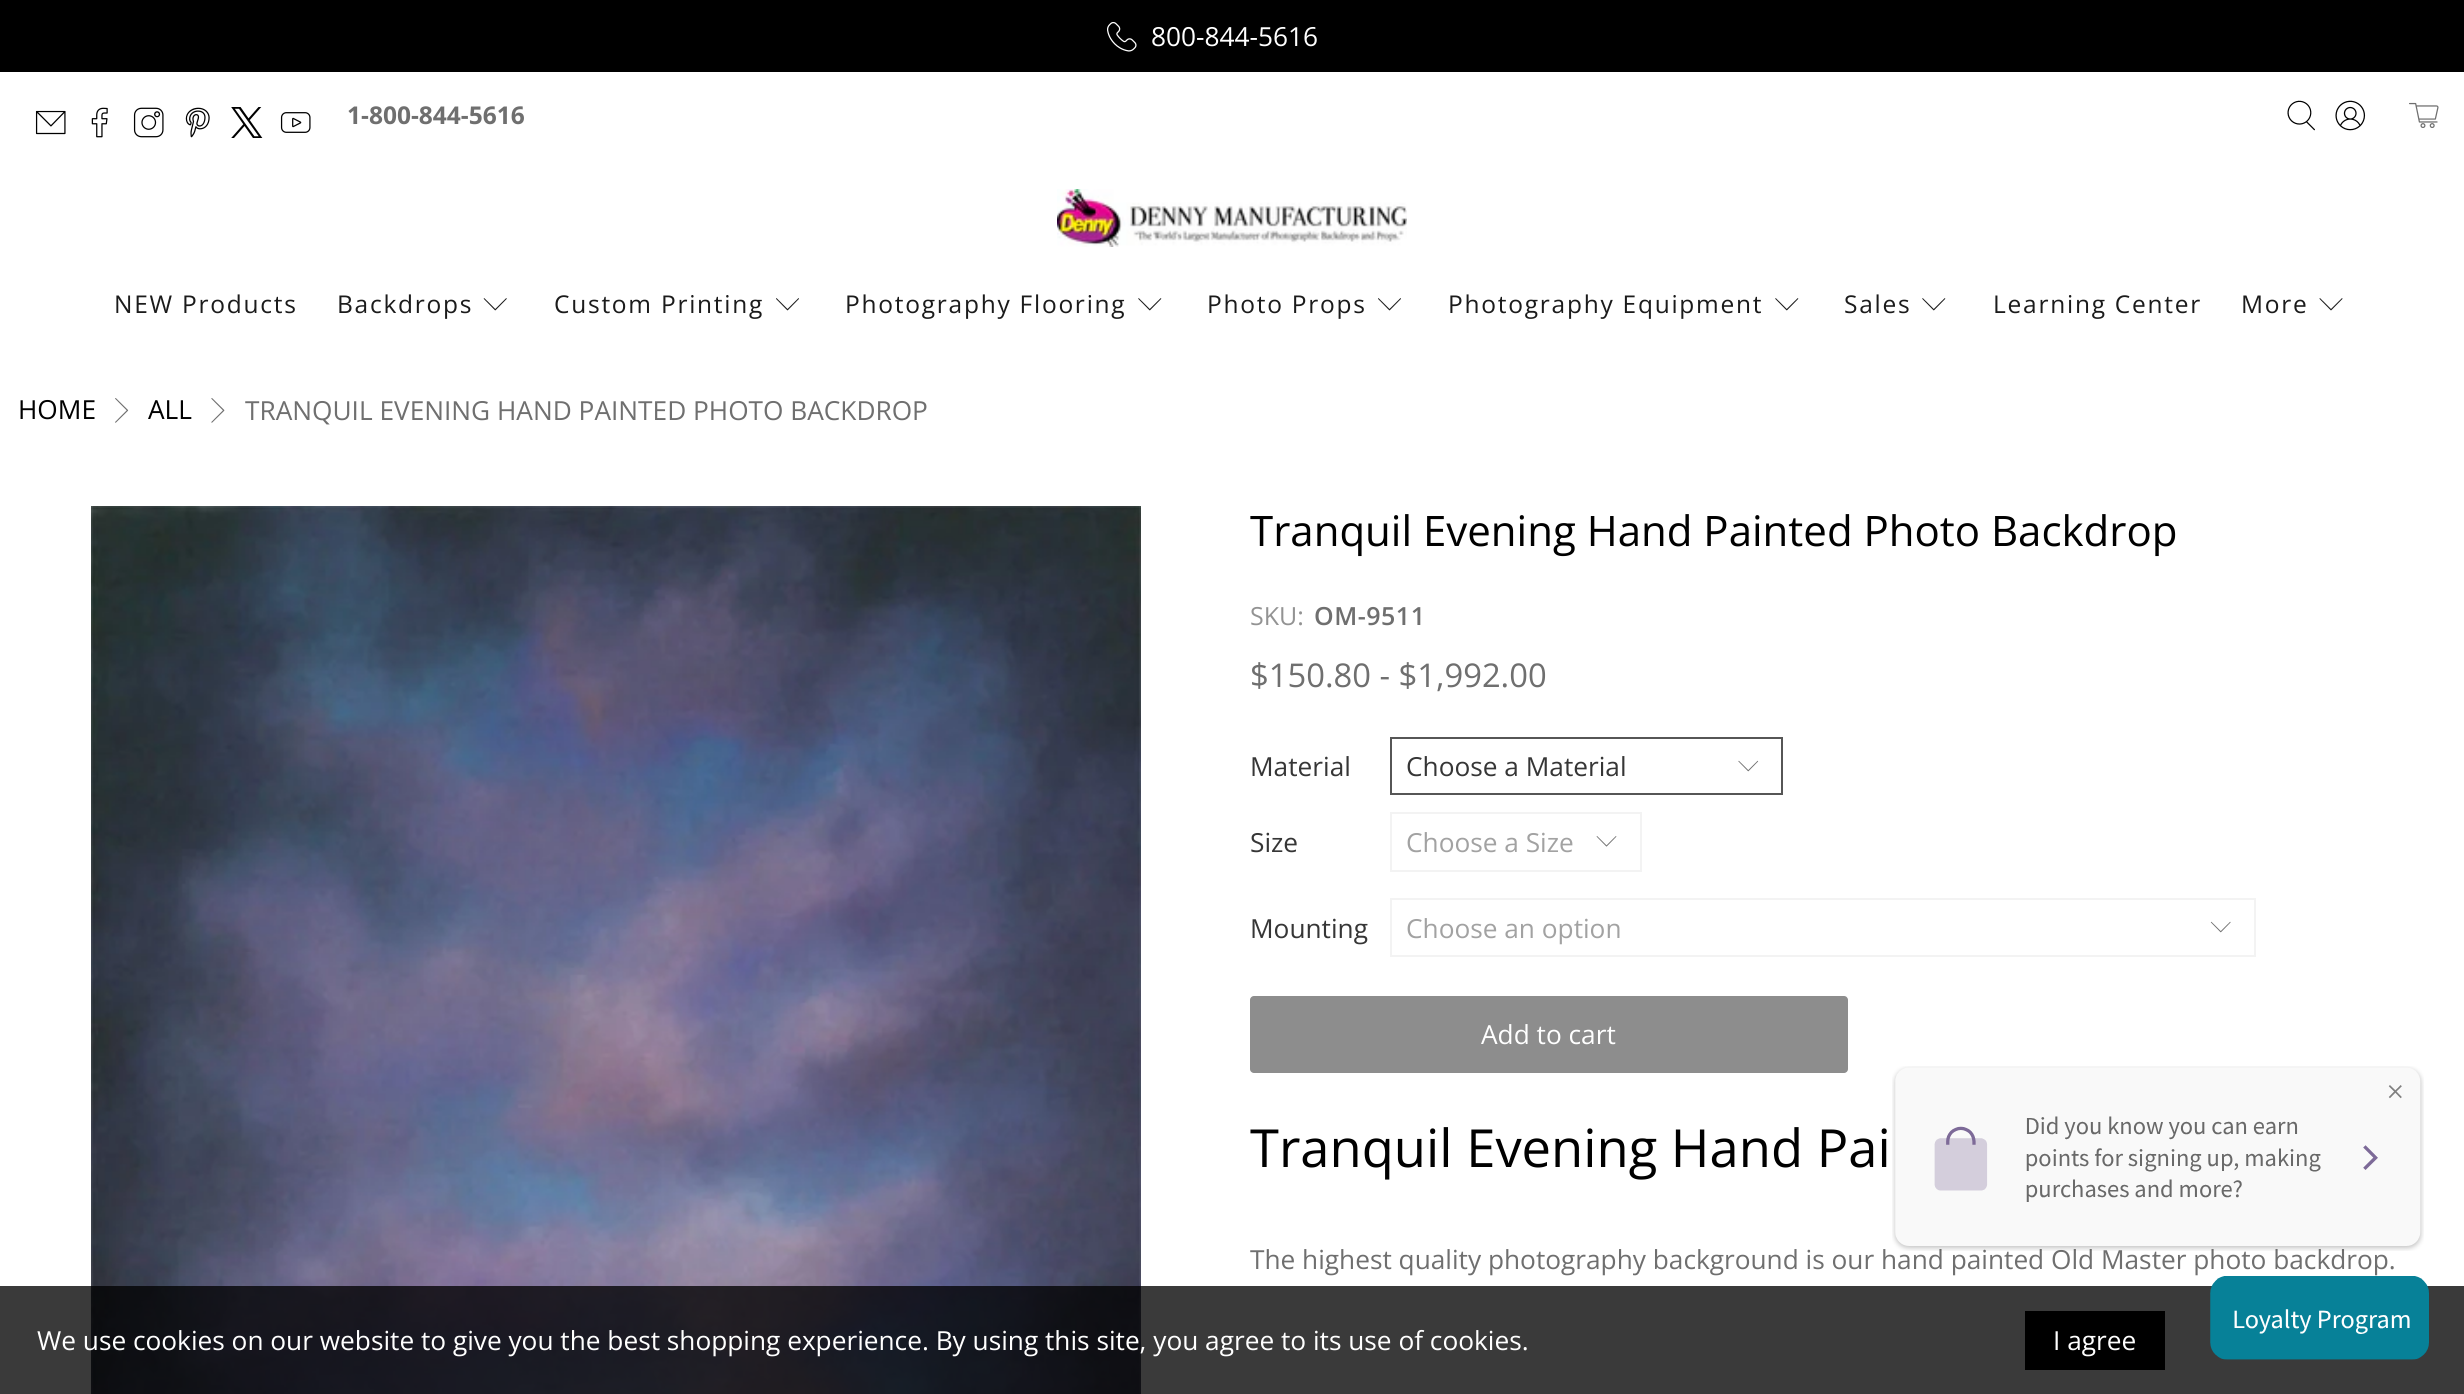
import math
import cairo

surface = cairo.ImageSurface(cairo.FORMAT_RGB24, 2464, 1394)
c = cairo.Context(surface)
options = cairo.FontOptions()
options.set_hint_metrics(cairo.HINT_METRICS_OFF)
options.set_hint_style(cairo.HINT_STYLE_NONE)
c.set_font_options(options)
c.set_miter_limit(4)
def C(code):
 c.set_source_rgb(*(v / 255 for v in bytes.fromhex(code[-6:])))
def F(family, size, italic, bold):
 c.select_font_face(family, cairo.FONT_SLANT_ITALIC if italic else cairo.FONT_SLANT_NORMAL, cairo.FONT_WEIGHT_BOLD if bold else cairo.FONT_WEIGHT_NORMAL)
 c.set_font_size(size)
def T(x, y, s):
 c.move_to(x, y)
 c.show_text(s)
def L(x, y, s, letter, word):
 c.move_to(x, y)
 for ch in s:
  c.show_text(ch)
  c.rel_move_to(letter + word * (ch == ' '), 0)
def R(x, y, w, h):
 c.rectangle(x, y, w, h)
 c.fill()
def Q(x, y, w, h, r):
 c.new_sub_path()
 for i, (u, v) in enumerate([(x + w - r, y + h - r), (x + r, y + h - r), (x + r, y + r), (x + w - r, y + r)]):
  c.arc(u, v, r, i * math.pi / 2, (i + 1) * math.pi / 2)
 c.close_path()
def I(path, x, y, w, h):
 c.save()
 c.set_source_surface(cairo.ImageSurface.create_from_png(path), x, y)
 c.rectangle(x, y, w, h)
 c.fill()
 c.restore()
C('ffffff')
c.paint()
C('000000')
R(0,0,2464,72)
I('1.png',1107,22,30,30)
F('Open Sans',26.25,0,0)
C('ffffff')
T(1151,46,'800-844-5616')
I('2.png',35,110,31,25)
I('3.png',91,107,17,31)
I('4.png',133,107,31,31)
I('5.png',185,107,25,31)
I('6.png',231,107,32,31)
I('7.png',280,112,31,21)
F('Open Sans',24.5,0,1)
C('6f6f6f')
T(347,124,'1-800-844-5616')
I('8.png',2287,100,28,31)
I('9.png',2335,100,31,31)
I('10.png',2409,102,30,26)
I('11.png',1057,189,350,58)
F('Open Sans',24.5,0,0)
C('1b1b1b')
L(114,313,'NEW Products',1.75,0)
L(337,313,'Backdrops',1.75,0)
I('12.png',483,298,24,13)
L(554,313,'Custom Printing',1.75,0)
I('13.png',776,298,23,13)
L(845,313,'Photography Flooring',1.75,0)
I('14.png',1138,298,24,13)
L(1207,313,'Photo Props',1.75,0)
I('13.png',1378,298,23,13)
L(1448,313,'Photography Equipment',1.75,0)
I('14.png',1775,298,24,13)
L(1844,313,'Sales',1.75,0)
I('14.png',1922,298,24,13)
L(1993,313,'Learning Center',1.75,0)
L(2241,313,'More',1.75,0)
I('15.png',2319,298,24,13)
F('Open Sans',26.25,0,0)
C('000000')
T(18,419,'HOME')
I('16.png',115,398,14,25)
T(148,419,'ALL')
I('17.png',211,398,14,25)
C('6f6f6f')
T(245,420,'TRANQUIL EVENING HAND PAINTED PHOTO BACKDROP')
I('18.png',91,506,1050,888)
F('Open Sans',42,0,0)
C('000000')
T(1250,546,'Tranquil Evening Hand Painted Photo Backdrop')
F('Open Sans',25,0,0)
C('939393')
T(1250,625,'SKU:')
F('Open Sans SemiBold',25,0,0)
C('6f6f6f')
L(1314,625,'OM-9511',.5,0)
F('Open Sans',32.75,0,0)
T(1250,687,'$150.80 - $1,992.00')
F('Open Sans',26.25,0,0)
C('363636')
T(1250,776,'Material')
c.rectangle(1391,738,391,56)
C('565656')
c.stroke()
C('363636')
T(1406,776,'Choose a Material')
I('19.png',1738,760,21,12)
T(1250,852,'Size')
c.rectangle(1391,813,250,58)
C('f3f3f3')
c.stroke()
C('a2a2a2')
T(1406,852,'Choose a Size')
I('20.png',1596,836,21,11)
C('363636')
T(1250,938,'Mounting')
c.rectangle(1391,899,864,57)
C('f3f3f3')
c.stroke()
C('a2a2a2')
T(1406,938,'Choose an option')
I('21.png',2210,921,21,12)
C('8d8d8d')
Q(1250,996,598,77,4)
c.fill()
C('ffffff')
T(1481,1044,'Add to cart')
F('Open Sans',52.5,0,0)
C('000000')
T(1250,1167,'Tranquil Evening Hand Pai')
F('Open Sans',26.25,0,0)
C('6f6f6f')
T(1250,1269,'The highest quality photography background is our hand painted Old Master photo backdrop.')
I('22.png',1892,1066,532,185)
c.set_source_rgba(0,0,0,0.77)
R(0,1286,2464,108)
C('ffffff')
T(37,1350,'We use cookies on our website to give you the best shopping experience. By using this site, you agree to its use of cookies.')
C('000000')
R(2025,1311,140,59)
C('ffffff')
T(2053,1350,'I agree')
I('23.png',2210,1276,219,84)
surface.write_to_png('o.png')
